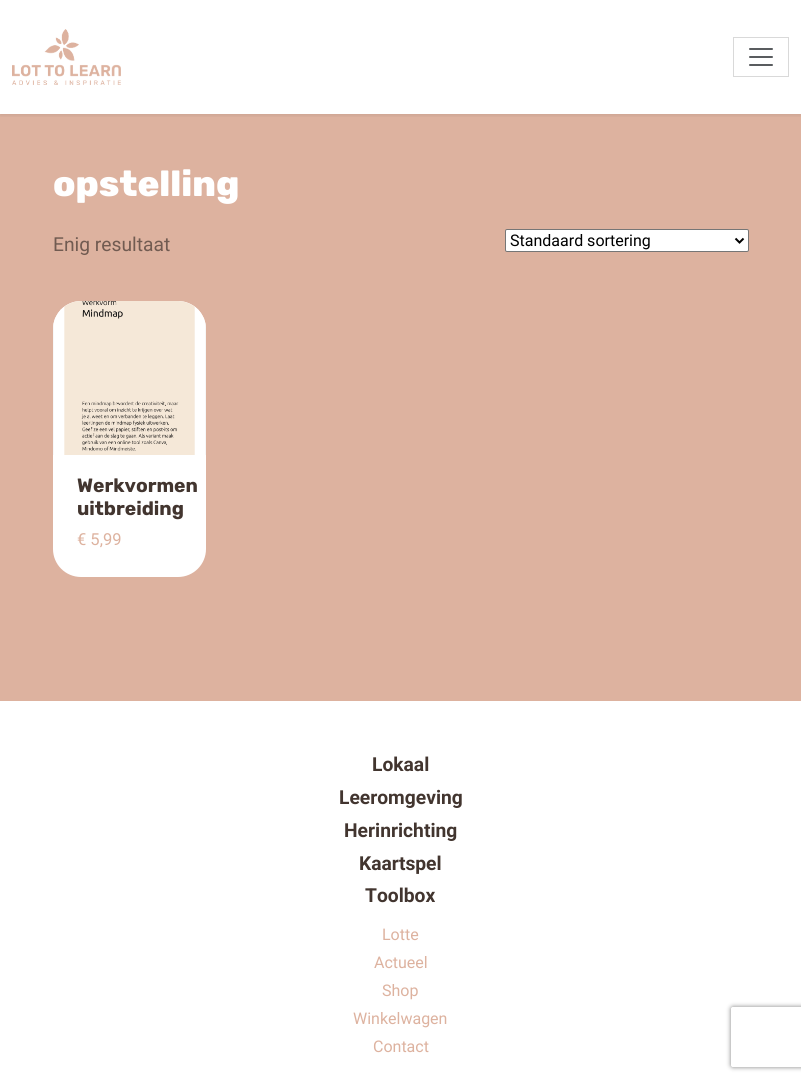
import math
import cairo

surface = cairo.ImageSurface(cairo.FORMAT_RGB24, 801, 1081)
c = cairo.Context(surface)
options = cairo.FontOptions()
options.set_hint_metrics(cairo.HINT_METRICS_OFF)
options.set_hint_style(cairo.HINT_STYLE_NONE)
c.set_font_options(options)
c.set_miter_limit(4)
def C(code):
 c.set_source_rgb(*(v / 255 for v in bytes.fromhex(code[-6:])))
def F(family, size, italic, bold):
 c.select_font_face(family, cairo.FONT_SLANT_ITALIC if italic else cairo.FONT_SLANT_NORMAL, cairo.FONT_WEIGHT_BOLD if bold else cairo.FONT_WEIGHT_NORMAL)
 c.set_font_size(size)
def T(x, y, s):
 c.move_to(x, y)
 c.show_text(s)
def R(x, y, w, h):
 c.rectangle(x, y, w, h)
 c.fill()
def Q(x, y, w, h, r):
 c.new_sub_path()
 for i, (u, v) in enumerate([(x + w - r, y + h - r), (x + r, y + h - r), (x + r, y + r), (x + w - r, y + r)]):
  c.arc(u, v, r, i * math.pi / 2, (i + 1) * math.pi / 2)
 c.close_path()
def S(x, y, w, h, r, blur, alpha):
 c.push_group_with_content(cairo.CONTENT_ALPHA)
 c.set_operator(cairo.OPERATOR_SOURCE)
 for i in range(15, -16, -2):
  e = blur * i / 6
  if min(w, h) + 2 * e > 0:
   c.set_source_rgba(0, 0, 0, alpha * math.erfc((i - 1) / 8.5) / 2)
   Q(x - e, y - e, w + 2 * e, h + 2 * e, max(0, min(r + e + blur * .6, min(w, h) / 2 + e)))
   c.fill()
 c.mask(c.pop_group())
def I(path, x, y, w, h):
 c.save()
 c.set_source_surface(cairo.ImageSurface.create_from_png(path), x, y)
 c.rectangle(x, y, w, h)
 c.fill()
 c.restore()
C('ffffff')
c.paint()
C('ddb29f')
R(0,114,801,587)
c.save()
c.rectangle(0,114,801,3)
c.clip()
C('000000')
S(0,2,801,114,0,2,.07)
c.restore()
I('1.png',12,29,109,56)
c.rectangle(733.5,37.5,55,39)
C('d9d9d9')
c.set_line_width(1)
c.stroke()
I('2.png',749,48,24,18)
F('Rubik ExtraBold',36,0,0)
C('ffffff')
T(53,196,'opstelling')
F('Roboto',19.25,0,0)
C('715b51')
T(53,251,'Enig resultaat')
C('ffffff')
Q(505.5,229.5,243,22,1.5)
c.fill_preserve()
C('767676')
c.stroke()
c.new_path()
c.move_to(735.5,238.5)
c.line_to(739.5,242.5)
c.line_to(743.5,238.5)
C('000000')
c.set_line_width(2)
c.stroke()
F('Roboto',16,0,0)
T(510,246,'Standaard sortering')
C('ffffff')
Q(53,301,153,276,28)
c.fill()
I('3.png',53,301,153,154)
F('Rubik',19.25,0,1)
C('42352f')
T(77,492,'Werkvormen')
T(77,515,'uitbreiding')
F('Roboto',16.5,0,0)
C('ddb29f')
T(77,545,'€ 5,99')
F('Roboto',19.25,0,1)
C('42352f')
T(372,771,'Lokaal')
T(339,804,'Leeromgeving')
T(344,837,'Herinrichting')
T(359,870,'Kaartspel')
T(365,902,'Toolbox')
F('Roboto',16,0,0)
C('ddb29f')
T(382,940,'Lotte')
T(374,968,'Actueel')
T(382,996,'Shop')
T(353,1024,'Winkelwagen')
T(373,1052,'Contact')
c.save()
c.set_fill_rule(cairo.FILL_RULE_EVEN_ODD)
c.new_path()
c.move_to(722,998)
c.line_to(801,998)
c.line_to(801,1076)
c.line_to(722,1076)
c.close_path()
c.move_to(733,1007)
c.line_to(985,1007)
c.curve_to(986,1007,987,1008,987,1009)
c.line_to(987,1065)
c.curve_to(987,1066,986,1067,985,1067)
c.line_to(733,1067)
c.curve_to(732,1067,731,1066,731,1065)
c.line_to(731,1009)
c.curve_to(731,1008,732,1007,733,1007)
c.close_path()
c.clip()
C('808080')
S(731,1007,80,60,2,2.5,1)
c.restore()
surface.write_to_png('o.png')
